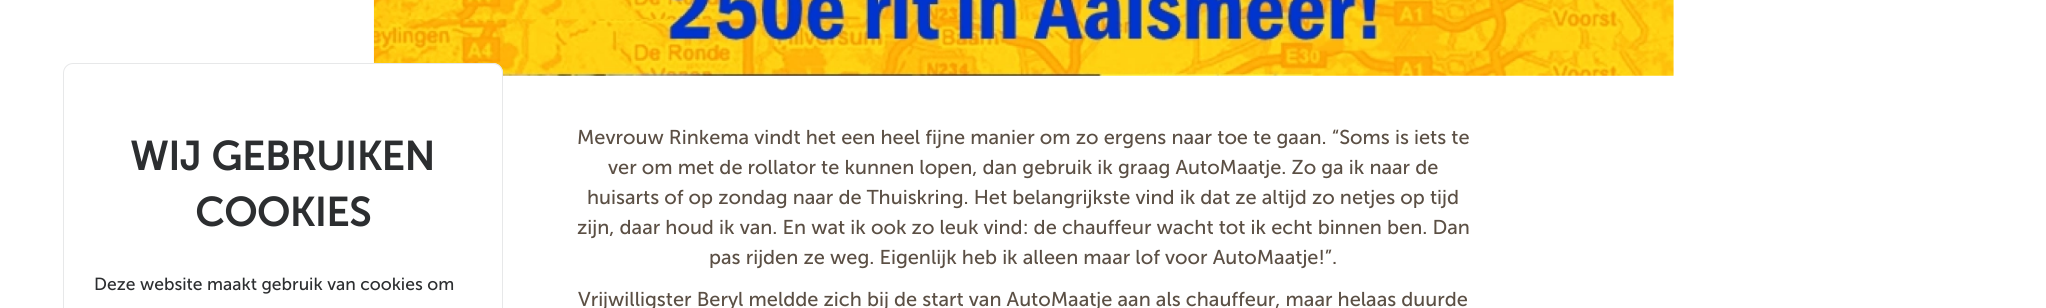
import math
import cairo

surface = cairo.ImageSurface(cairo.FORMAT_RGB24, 2046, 308)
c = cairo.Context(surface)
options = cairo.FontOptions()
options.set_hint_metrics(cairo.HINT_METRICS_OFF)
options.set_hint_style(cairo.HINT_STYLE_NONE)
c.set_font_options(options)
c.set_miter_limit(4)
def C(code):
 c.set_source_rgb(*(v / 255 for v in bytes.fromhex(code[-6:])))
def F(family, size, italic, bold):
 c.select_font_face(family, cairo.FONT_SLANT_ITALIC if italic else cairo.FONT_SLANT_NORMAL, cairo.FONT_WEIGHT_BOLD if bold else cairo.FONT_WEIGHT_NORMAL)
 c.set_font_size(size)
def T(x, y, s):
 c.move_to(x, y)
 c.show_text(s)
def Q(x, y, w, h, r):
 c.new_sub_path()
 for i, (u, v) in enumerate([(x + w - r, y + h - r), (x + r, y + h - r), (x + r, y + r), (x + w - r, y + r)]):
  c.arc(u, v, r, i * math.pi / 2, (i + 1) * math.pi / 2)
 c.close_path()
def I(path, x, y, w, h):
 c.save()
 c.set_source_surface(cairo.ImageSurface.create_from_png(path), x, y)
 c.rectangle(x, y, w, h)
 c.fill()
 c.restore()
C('ffffff')
c.paint()
I('1.png',373,0,1301,76)
C('ffffff')
c.new_path()
c.move_to(73,63)
c.line_to(493,63)
c.curve_to(498.5,63,503,67.5,503,73)
c.line_to(503,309)
c.line_to(63,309)
c.line_to(63,73)
c.curve_to(63,67.5,67.5,63,73,63)
c.close_path()
c.fill()
Q(63.5,63.5,439,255,9.5)
C('e7e8e9')
c.set_line_width(1)
c.stroke()
F('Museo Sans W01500',40,0,1)
C('2c2e30')
T(130,170,'WIJ GEBRUIKEN')
T(195,226,'COOKIES')
F('Museo Sans W01500',17.5,0,0)
T(94,290,'Deze website maakt gebruik van cookies om')
F('Museo Sans W01500',20,0,0)
C('5b4f44')
T(577,144,'Mevrouw Rinkema vindt het een heel fijne manier om zo ergens naar toe te gaan. “Soms is iets te')
T(608,174,'ver om met de rollator te kunnen lopen, dan gebruik ik graag AutoMaatje. Zo ga ik naar de')
T(587,204,'huisarts of op zondag naar de Thuiskring. Het belangrijkste vind ik dat ze altijd zo netjes op tijd')
T(577,234,'zijn, daar houd ik van. En wat ik ook zo leuk vind: de chauffeur wacht tot ik echt binnen ben. Dan')
T(709,264,'pas rijden ze weg. Eigenlijk heb ik alleen maar lof voor AutoMaatje!”.')
T(578,306,'Vrijwilligster Beryl meldde zich bij de start van AutoMaatje aan als chauffeur, maar helaas duurde')
surface.write_to_png('o.png')
